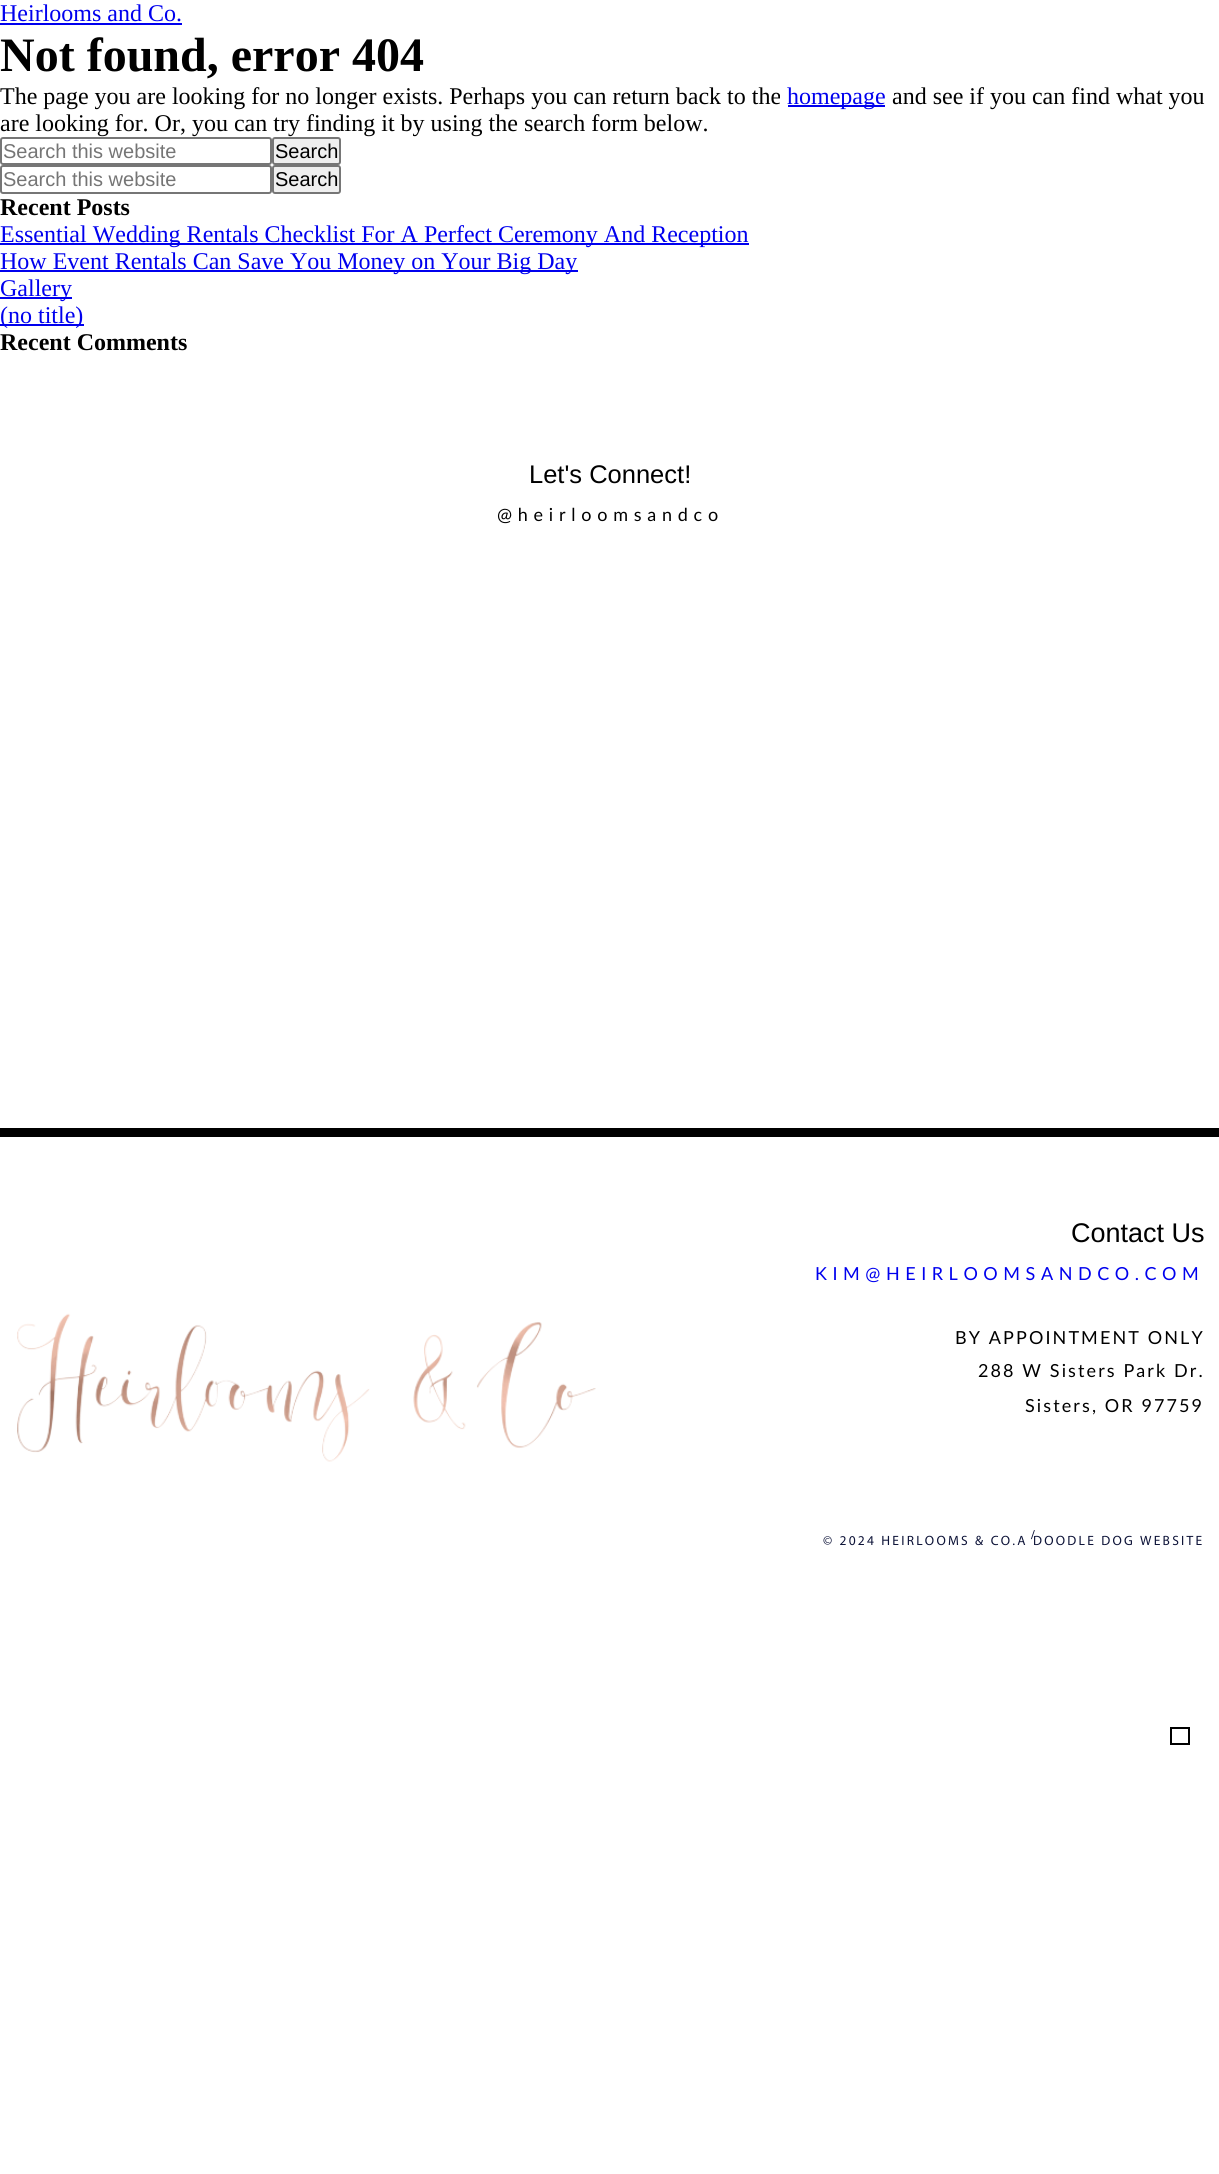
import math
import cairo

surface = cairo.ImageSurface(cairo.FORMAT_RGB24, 1219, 2174)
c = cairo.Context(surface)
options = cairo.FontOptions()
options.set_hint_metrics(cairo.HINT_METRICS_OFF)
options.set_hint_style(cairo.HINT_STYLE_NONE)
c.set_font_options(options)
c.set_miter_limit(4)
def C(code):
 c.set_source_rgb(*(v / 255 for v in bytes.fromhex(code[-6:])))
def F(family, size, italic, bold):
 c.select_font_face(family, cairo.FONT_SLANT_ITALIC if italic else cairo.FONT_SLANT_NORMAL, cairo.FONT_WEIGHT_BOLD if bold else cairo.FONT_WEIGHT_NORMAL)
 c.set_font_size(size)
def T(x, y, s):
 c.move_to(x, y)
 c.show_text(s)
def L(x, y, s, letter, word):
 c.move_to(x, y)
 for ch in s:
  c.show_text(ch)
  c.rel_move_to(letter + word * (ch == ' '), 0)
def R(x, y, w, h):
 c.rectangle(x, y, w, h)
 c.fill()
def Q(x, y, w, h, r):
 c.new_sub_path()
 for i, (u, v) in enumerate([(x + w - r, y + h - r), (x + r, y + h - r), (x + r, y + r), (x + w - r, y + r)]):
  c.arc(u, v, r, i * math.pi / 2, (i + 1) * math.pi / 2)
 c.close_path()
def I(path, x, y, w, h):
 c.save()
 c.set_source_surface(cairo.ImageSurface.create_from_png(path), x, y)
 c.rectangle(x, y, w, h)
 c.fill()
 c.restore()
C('ffffff')
c.paint()
F('Liberation Serif',24,0,0)
C('0000ee')
T(0,21,'Heirlooms and Co.')
R(0,23,182,2)
F('Liberation Serif',48,0,1)
C('000000')
T(0,71,'Not found, error 404')
F('Liberation Serif',24,0,0)
T(0,104,'The page you are looking for no longer exists. Perhaps you can return back to the')
C('0000ee')
R(788,105,97,2)
T(787,104,'homepage')
C('000000')
T(892,104,'and see if you can find what you')
T(0,131,'are looking for. Or, you can try finding it by using the search form below.')
Q(1,138,270,26,2)
C('767676')
c.stroke()
F('Liberation Sans',20,0,0)
C('757575')
T(3,158,'Search this website')
C('efefef')
Q(273,138,67,26,2)
c.fill_preserve()
C('767676')
c.stroke()
C('000000')
T(275,158,'Search')
Q(1,166,270,27,2)
C('767676')
c.stroke()
C('757575')
T(3,186,'Search this website')
C('efefef')
Q(273,166,67,27,2)
c.fill_preserve()
C('767676')
c.stroke()
C('000000')
T(275,186,'Search')
F('Liberation Serif',24,0,1)
T(0,215,'Recent Posts')
C('0000ee')
R(0,243,749,2)
F('Liberation Serif',24,0,0)
T(0,242,'Essential Wedding Rentals Checklist For A Perfect Ceremony And Reception')
R(0,270,578,2)
T(0,269,'How Event Rentals Can Save You Money on Your Big Day')
R(0,297,72,2)
T(0,296,'Gallery')
R(0,324,84,2)
T(0,323,'(no title)')
F('Liberation Serif',24,0,1)
C('000000')
T(0,350,'Recent Comments')
F('Liberation Sans',25.5,0,0)
T(529,483,'Let\'s Connect!')
F('Lato',18,0,0)
L(497,521,'@heirloomsandco',5.75,0)
R(0,1128,1219,9)
I('1.png',17,1313,579,149)
F('Liberation Sans',27,0,0)
T(1071,1242,'Contact Us')
F('Lato',18,0,0)
C('0000ee')
L(815,1280,'KIM@HEIRLOOMSANDCO.COM',5.55,0)
C('000000')
L(955,1344,'BY APPOINTMENT ONLY',2.1,0)
L(978,1377,'288 W Sisters Park Dr.',2.1,0)
L(1025,1412,'Sisters, OR 97759',2.1,0)
F('Myriad',13.5,0,0)
C('0d1338')
L(823,1545,'© 2024 HEIRLOOMS & CO.A DOODLE DOG WEBSITE',2.25,0)
F('Liberation Serif',13.5,0,1)
T(1031,1539,'/')
c.rectangle(1171,1728,18,16)
C('000000')
c.stroke()
surface.write_to_png('o.png')
